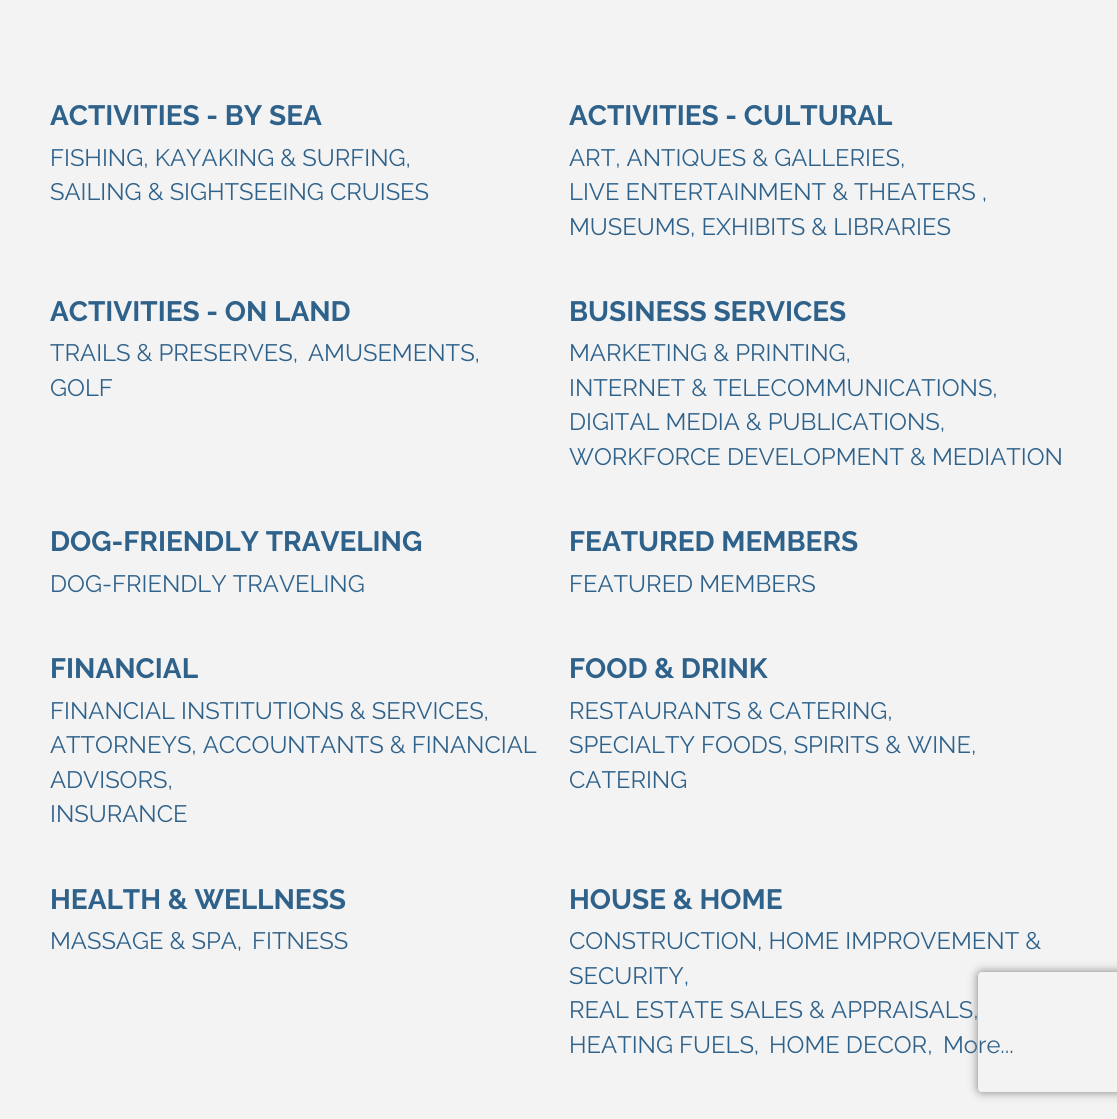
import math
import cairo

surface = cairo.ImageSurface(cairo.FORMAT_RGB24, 1117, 1119)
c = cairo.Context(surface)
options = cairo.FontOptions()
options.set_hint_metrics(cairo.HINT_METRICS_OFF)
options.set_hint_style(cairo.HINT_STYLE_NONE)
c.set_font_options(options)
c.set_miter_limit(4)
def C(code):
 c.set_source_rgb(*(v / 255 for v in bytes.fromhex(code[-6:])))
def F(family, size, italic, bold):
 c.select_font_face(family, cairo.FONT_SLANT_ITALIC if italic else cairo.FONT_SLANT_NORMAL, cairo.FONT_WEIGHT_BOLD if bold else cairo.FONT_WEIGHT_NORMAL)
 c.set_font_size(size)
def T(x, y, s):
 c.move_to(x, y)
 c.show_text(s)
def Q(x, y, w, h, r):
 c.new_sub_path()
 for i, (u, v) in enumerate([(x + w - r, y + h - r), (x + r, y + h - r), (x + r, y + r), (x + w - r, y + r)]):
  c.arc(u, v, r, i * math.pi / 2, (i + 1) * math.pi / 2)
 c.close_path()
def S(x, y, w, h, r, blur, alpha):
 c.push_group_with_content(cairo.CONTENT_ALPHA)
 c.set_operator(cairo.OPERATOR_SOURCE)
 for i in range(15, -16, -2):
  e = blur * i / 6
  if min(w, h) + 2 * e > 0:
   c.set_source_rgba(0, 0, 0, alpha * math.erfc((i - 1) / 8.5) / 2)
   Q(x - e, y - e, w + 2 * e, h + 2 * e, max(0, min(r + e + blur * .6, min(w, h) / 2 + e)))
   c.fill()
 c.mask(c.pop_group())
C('f3f3f3')
c.paint()
F('Raleway',28,0,1)
C('2f628b')
T(50,125,'ACTIVITIES - BY SEA')
F('Raleway',23.8,0,0)
T(50,166,'FISHING, KAYAKING & SURFING,')
T(50,200,'SAILING & SIGHTSEEING CRUISES')
F('Raleway',28,0,1)
T(569,125,'ACTIVITIES - CULTURAL')
F('Raleway',23.8,0,0)
T(569,166,'ART, ANTIQUES & GALLERIES,')
T(569,200,'LIVE ENTERTAINMENT & THEATERS ,')
T(569,235,'MUSEUMS, EXHIBITS & LIBRARIES')
F('Raleway',28,0,1)
T(50,321,'ACTIVITIES - ON LAND')
F('Raleway',23.8,0,0)
T(50,361,'TRAILS & PRESERVES,')
T(308,361,'AMUSEMENTS,')
T(50,396,'GOLF')
F('Raleway',28,0,1)
T(569,321,'BUSINESS SERVICES')
F('Raleway',23.8,0,0)
T(569,361,'MARKETING & PRINTING,')
T(569,396,'INTERNET & TELECOMMUNICATIONS,')
T(569,430,'DIGITAL MEDIA & PUBLICATIONS,')
T(569,465,'WORKFORCE DEVELOPMENT & MEDIATION')
F('Raleway',28,0,1)
T(50,551,'DOG-FRIENDLY TRAVELING')
F('Raleway',23.8,0,0)
T(50,592,'DOG-FRIENDLY TRAVELING')
F('Raleway',28,0,1)
T(569,551,'FEATURED MEMBERS')
F('Raleway',23.8,0,0)
T(569,592,'FEATURED MEMBERS')
F('Raleway',28,0,1)
T(50,678,'FINANCIAL')
F('Raleway',23.8,0,0)
T(50,719,'FINANCIAL INSTITUTIONS & SERVICES,')
T(50,753,'ATTORNEYS, ACCOUNTANTS & FINANCIAL')
T(50,788,'ADVISORS,')
T(50,822,'INSURANCE')
F('Raleway',28,0,1)
T(569,678,'FOOD & DRINK')
F('Raleway',23.8,0,0)
T(569,719,'RESTAURANTS & CATERING,')
T(569,753,'SPECIALTY FOODS, SPIRITS & WINE,')
T(569,788,'CATERING')
F('Raleway',28,0,1)
T(50,909,'HEALTH & WELLNESS')
F('Raleway',23.8,0,0)
T(50,949,'MASSAGE & SPA,')
T(252,949,'FITNESS')
F('Raleway',28,0,1)
T(569,909,'HOUSE & HOME')
F('Raleway',23.8,0,0)
T(569,949,'CONSTRUCTION, HOME IMPROVEMENT &')
T(569,984,'SECURITY,')
T(569,1018,'REAL ESTATE SALES & APPRAISALS,')
T(569,1053,'HEATING FUELS,')
T(769,1053,'HOME DECOR,')
T(943,1053,'More...')
c.save()
c.set_fill_rule(cairo.FILL_RULE_EVEN_ODD)
c.new_path()
c.move_to(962,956)
c.line_to(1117,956)
c.line_to(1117,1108)
c.line_to(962,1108)
c.close_path()
c.move_to(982,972)
c.line_to(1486,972)
c.curve_to(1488,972,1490,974,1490,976)
c.line_to(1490,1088)
c.curve_to(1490,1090,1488,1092,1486,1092)
c.line_to(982,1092)
c.curve_to(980,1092,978,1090,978,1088)
c.line_to(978,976)
c.curve_to(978,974,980,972,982,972)
c.close_path()
c.clip()
C('808080')
S(978,972,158,120,4,5,1)
c.restore()
surface.write_to_png('o.png')
